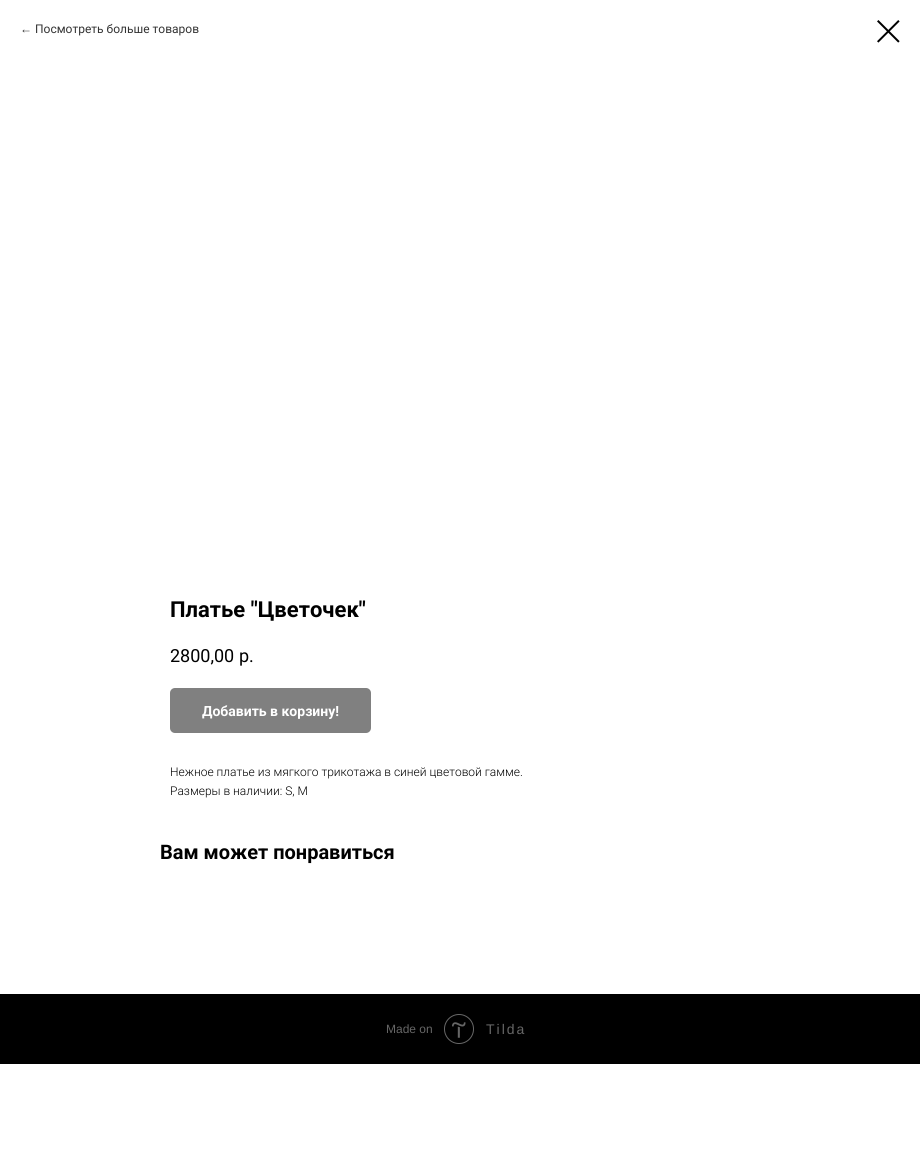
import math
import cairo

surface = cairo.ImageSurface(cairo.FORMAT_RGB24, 920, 1167)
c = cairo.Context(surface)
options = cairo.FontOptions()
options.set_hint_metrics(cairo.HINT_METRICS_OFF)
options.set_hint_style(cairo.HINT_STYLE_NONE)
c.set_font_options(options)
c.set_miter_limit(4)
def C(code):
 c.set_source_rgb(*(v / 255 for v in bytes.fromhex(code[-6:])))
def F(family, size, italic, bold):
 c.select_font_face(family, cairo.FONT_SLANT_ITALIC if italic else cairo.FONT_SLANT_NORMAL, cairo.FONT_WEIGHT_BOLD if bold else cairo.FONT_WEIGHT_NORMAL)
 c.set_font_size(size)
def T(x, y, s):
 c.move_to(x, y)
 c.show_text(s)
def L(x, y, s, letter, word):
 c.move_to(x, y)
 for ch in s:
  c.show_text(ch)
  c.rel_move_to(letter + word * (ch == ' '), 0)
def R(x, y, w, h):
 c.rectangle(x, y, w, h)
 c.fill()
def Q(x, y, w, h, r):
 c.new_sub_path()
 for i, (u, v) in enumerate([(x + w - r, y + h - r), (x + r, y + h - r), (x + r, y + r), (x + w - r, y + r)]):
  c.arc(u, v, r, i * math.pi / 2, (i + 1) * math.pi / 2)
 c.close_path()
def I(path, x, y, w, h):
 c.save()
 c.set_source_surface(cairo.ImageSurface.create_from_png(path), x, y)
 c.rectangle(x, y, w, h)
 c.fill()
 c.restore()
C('ffffff')
c.paint()
F('Liberation Sans',12,0,0)
C('333333')
T(20,33,'←')
F('Roboto',12,0,0)
T(35,33,'Посмотреть больше товаров')
I('1.png',877,20,23,23)
F('Roboto',22,0,1)
C('000000')
T(170,617,'Платье "Цветочек"')
F('Roboto',18,0,0)
T(170,662,'2800,00')
T(239,662,'р.')
C('808080')
Q(170,688,201,45,5)
c.fill()
F('Roboto',14,0,1)
C('ffffff')
T(202,716,'Добавить в корзину!')
F('Roboto Light',12,0,0)
C('000000')
T(170,776,'Нежное платье из мягкого трикотажа в синей цветовой гамме.')
T(170,795,'Размеры в наличии: S, M')
F('Roboto',20,0,1)
T(160,859,'Вам может понравиться')
R(0,994,920,70)
F('Liberation Sans',12,0,0)
C('666666')
T(386,1033,'Made on')
I('2.png',444,1014,30,30)
F('Liberation Sans',14,0,0)
L(486,1034,'Tilda',2,0)
surface.write_to_png('o.png')
